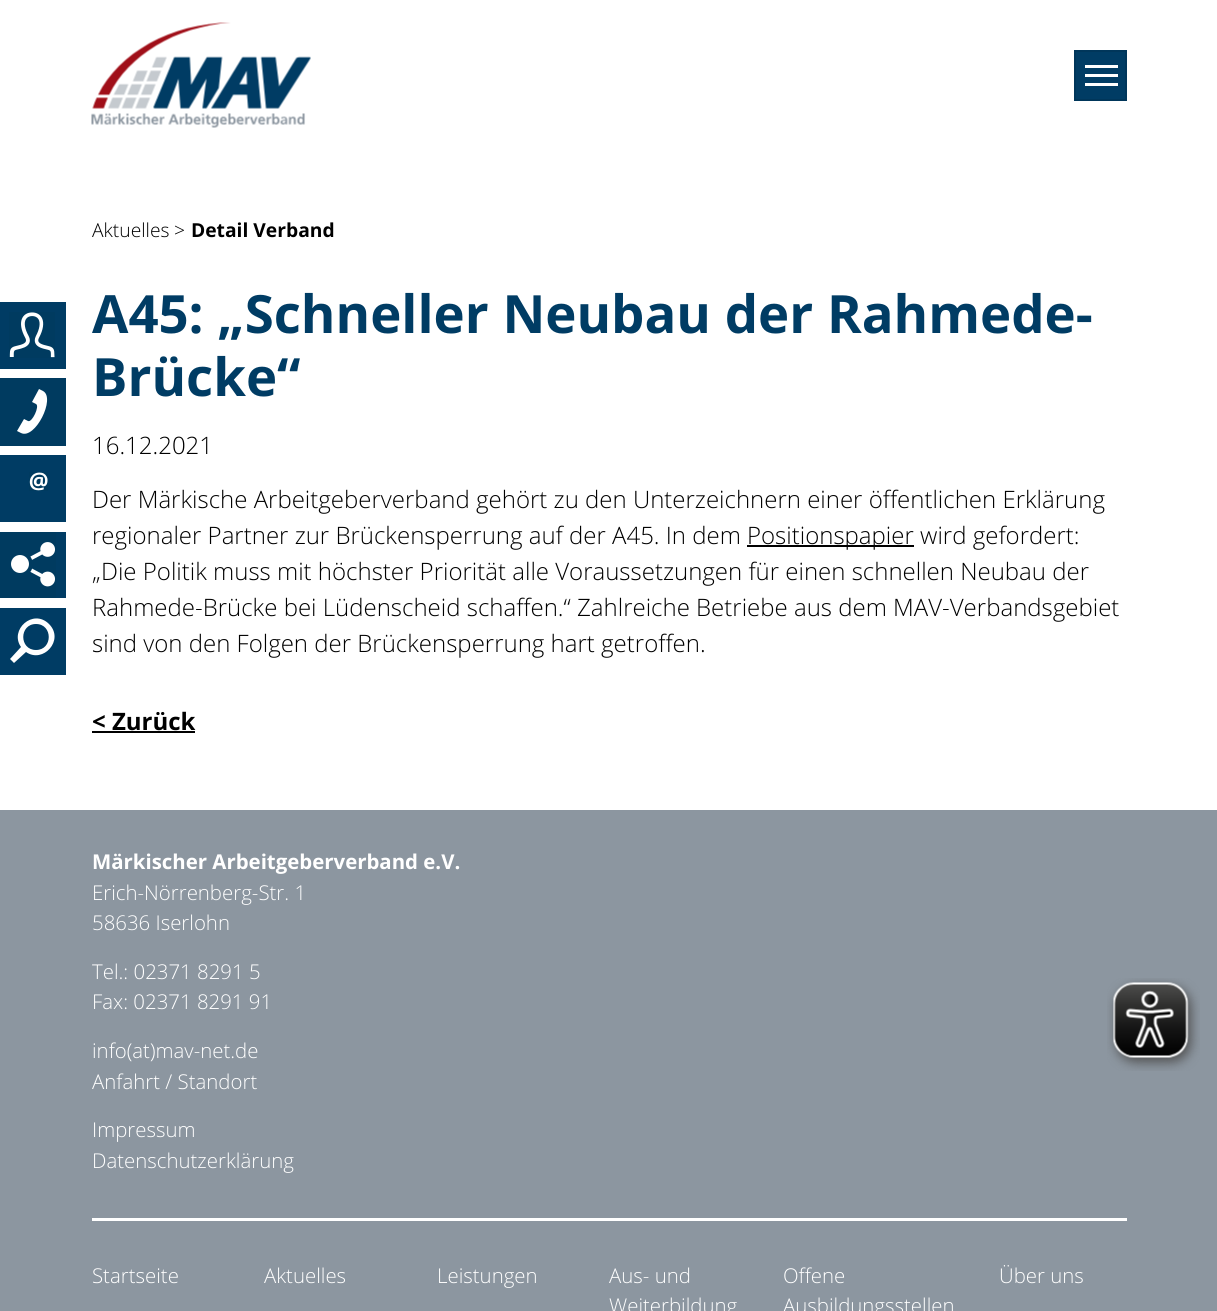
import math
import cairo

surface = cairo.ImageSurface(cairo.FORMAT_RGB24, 1217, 1311)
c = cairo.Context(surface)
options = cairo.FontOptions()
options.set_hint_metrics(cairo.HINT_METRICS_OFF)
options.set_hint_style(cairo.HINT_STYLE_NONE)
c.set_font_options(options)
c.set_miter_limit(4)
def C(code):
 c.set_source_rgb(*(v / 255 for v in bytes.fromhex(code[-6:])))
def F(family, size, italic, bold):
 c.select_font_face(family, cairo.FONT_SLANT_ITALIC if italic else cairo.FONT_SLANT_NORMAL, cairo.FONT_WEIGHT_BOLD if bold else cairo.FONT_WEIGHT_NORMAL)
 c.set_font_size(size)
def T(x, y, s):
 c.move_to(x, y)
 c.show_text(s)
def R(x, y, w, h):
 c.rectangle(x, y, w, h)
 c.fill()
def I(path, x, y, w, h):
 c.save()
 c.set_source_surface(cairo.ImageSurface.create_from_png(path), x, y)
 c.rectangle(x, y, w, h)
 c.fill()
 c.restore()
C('ffffff')
c.paint()
I('1.png',91,22,220,106)
C('003c64')
c.rectangle(1075,51,51,49)
c.fill_preserve()
C('00365a')
c.stroke()
C('ffffff')
R(1085,74,33,3)
R(1085,65,33,3)
R(1085,83,33,3)
C('003c64')
R(0,302,66,67)
I('2.png',9,312,46,46)
C('003b60')
R(0,378,66,68)
C('ffffff')
c.new_path()
c.move_to(21,433)
c.curve_to(35,440,56,398,43,391)
c.line_to(39,389)
c.line_to(32,402)
c.line_to(36,404)
c.curve_to(40,406,32,423,28,421)
c.line_to(24,419)
c.line_to(17,431)
c.close_path()
c.fill()
C('003c64')
R(0,455,66,67)
I('3.png',29,472,19,19)
R(56,532,10,66)
I('4.png',0,532,56,66)
R(0,608,66,67)
C('ffffff')
c.new_path()
c.move_to(14,663)
c.line_to(26,652)
c.curve_to(43,664,65,640,49,624)
c.curve_to(33,608,9,630,21,647)
c.line_to(10,659)
c.close_path()
c.move_to(36,650)
c.curve_to(19,650,19,624,36,624)
c.curve_to(53,624,53,650,36,650)
c.close_path()
c.fill()
F('Open Sans Light',19.25,0,0)
C('000000')
T(92,237,'Aktuelles')
T(174,237,'>')
F('Open Sans',19.25,0,1)
T(191,237,'Detail Verband')
F('Open Sans',52.75,0,1)
C('003c64')
T(92,333,'A45: „Schneller Neubau der Rahmede-')
T(92,396,'Brücke“')
F('Open Sans Light',24,0,0)
C('000000')
T(92,454,'16.12.2021')
T(92,508,'Der Märkische Arbeitgeberverband gehört zu den Unterzeichnern einer öffentlichen Erklärung')
T(92,544,'regionaler Partner zur Brückensperrung auf der A45. In dem')
R(747,545,167,2)
T(747,544,'Positionspapier wird gefordert:')
T(92,580,'„Die Politik muss mit höchster Priorität alle Voraussetzungen für einen schnellen Neubau der')
T(92,616,'Rahmede-Brücke bei Lüdenscheid schaffen.“ Zahlreiche Betriebe aus dem MAV-Verbandsgebiet')
T(92,652,'sind von den Folgen der Brückensperrung hart getroffen.')
F('Open Sans',24,0,1)
T(92,730,'< Zurück')
R(92,731,103,2)
C('8c96a0')
R(0,810,1217,501)
F('Open Sans',20.4,0,1)
C('ffffff')
T(92,869,'Märkischer Arbeitgeberverband e.V.')
F('Open Sans Light',20.4,0,0)
T(92,900,'Erich-Nörrenberg-Str. 1')
T(92,930,'58636 Iserlohn')
T(92,979,'Tel.: 02371 8291 5')
T(92,1009,'Fax: 02371 8291 91')
T(92,1058,'info(at)mav-net.de')
T(92,1089,'Anfahrt / Standort')
T(92,1137,'Impressum')
T(92,1168,'Datenschutzerklärung')
R(92,1218,1035,3)
T(92,1283,'Startseite')
T(264,1283,'Aktuelles')
T(437,1283,'Leistungen')
T(609,1283,'Aus- und')
T(609,1313,'Weiterbildung')
T(783,1283,'Offene')
T(783,1313,'Ausbildungsstellen')
T(999,1283,'Über uns')
I('5.png',1107,978,93,93)
surface.write_to_png('o.png')
